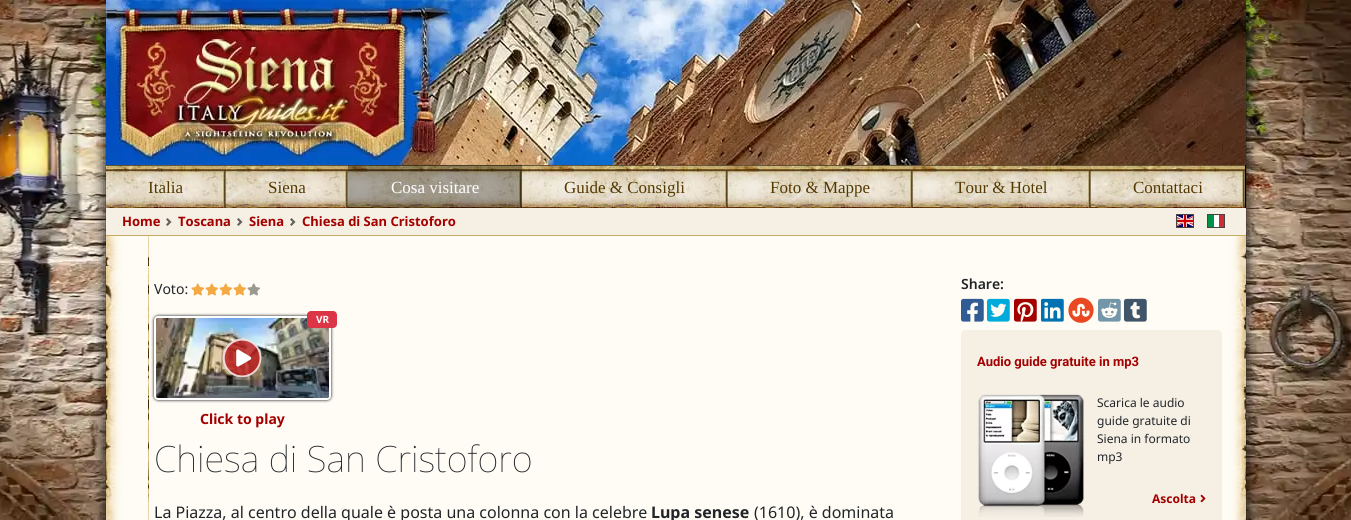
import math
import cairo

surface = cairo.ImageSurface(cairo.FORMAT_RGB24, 1351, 520)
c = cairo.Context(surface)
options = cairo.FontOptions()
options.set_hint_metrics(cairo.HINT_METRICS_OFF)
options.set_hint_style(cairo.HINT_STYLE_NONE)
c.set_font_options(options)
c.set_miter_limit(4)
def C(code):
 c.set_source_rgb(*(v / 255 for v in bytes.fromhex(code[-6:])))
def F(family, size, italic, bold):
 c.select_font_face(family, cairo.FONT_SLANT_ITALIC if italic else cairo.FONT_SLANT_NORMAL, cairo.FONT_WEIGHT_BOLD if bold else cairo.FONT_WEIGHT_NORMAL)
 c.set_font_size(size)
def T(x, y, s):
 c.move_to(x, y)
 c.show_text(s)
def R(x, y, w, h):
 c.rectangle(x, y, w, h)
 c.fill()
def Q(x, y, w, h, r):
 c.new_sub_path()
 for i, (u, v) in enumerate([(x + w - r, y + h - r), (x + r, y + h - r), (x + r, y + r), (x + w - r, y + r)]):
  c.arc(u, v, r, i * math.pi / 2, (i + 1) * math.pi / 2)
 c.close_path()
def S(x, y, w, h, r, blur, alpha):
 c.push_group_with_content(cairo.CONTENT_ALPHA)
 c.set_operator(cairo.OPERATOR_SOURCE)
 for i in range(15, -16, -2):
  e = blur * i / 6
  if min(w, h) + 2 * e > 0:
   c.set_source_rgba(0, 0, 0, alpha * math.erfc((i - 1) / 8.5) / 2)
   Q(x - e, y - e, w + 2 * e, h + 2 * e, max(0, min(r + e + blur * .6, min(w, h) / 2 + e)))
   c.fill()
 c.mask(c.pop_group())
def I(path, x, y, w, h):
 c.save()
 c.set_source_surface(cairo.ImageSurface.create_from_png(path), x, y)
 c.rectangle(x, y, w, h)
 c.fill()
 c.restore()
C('ffffff')
c.paint()
I('1.png',0,0,1351,520)
I('2.png',0,13,2,2)
C('000000')
S(106,17,1140,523,0,6.5,1)
I('3.png',106,0,1140,165)
C('000000')
R(1245,165,1,43)
I('4.png',106,165,120,43)
F('Liberation Serif',17,0,0)
C('533900')
T(148,193,'Italia')
I('5.png',226,165,122,43)
T(268,193,'Siena')
I('6.png',348,165,174,43)
C('ffffff')
T(391,193,'Cosa visitare')
I('7.png',522,165,206,43)
C('533900')
T(564,193,'Guide & Consigli')
I('8.png',728,165,185,43)
T(770,193,'Foto & Mappe')
I('9.png',913,165,178,43)
T(955,193,'Tour & Hotel')
I('10.png',1091,165,154,43)
T(1133,193,'Contattaci')
C('f5efe4')
R(106,208,1140,27)
C('c4ad60')
R(106,235,1140,1)
F('Noto Sans',13,0,1)
C('a30000')
T(122,226,'Home')
I('11.png',166,218,6,8)
T(178,226,'Toscana')
I('11.png',237,218,6,8)
T(249,226,'Siena')
I('11.png',290,218,6,8)
T(302,226,'Chiesa di San Cristoforo')
c.rectangle(1176.5,214.5,17,13)
C('474542')
c.set_line_width(1)
c.stroke()
I('12.png',1177,215,16,12)
c.rectangle(1207.5,214.5,17,13)
c.stroke()
C('009246')
R(1208,215,6,12)
C('ffffff')
R(1214,215,5,12)
C('ce2b37')
R(1219,215,5,12)
C('fffcf5')
R(106,236,1140,284)
I('13.png',106,236,1140,284)
F('Noto Sans',14,0,0)
C('212529')
T(154,294,'Voto:')
I('14.png',191,283,13,13)
I('14.png',205,283,13,13)
I('14.png',219,283,13,13)
I('14.png',233,283,13,13)
I('15.png',247,283,13,13)
C('000000')
S(154,316,177,84,4,1.5,1)
Q(155,317,175,82,3)
C('ffffff')
c.set_line_width(2)
c.stroke()
I('16.png',156,318,173,80)
C('dc3545')
Q(307,311,30,17,4)
c.fill()
F('Noto Sans',10,0,1)
C('ffffff')
T(316,323,'VR')
I('17.png',222,338,40,40)
F('Noto Sans',14,0,1)
C('a30000')
T(200,424,'Click to play')
F('Noto Sans Thin',36.25,0,0)
C('212529')
T(154,472,'Chiesa di San Cristoforo')
F('Noto Sans',16,0,0)
T(154,518,'La Piazza, al centro della quale è posta una colonna con la celebre')
F('Noto Sans',16,0,1)
T(651,518,'Lupa senese')
F('Noto Sans',16,0,0)
T(754,518,'(1610), è dominata')
F('Noto Sans SemiBold',14,0,0)
T(961,289,'Share:')
I('18.png',961,298,23,24)
I('19.png',987,298,23,24)
I('20.png',1014,298,23,24)
I('21.png',1041,298,23,24)
I('22.png',1068,297,26,26)
I('23.png',1098,298,23,24)
I('24.png',1124,298,23,24)
C('f5efe4')
c.new_path()
c.move_to(965,330)
c.line_to(1218,330)
c.curve_to(1220,330,1222,332,1222,334)
c.line_to(1222,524)
c.line_to(961,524)
c.line_to(961,334)
c.curve_to(961,332,963,330,965,330)
c.close_path()
c.fill()
F('Roboto',13,0,1)
C('a30000')
T(977,366,'Audio guide gratuite in mp3')
I('25.png',978,394,106,123)
F('Noto Sans',12,0,0)
C('212529')
T(1097,407,'Scarica le audio')
T(1097,425,'guide gratuite di')
T(1097,443,'Siena in formato')
T(1097,461,'mp3')
F('Noto Sans',12,0,1)
C('a30000')
T(1152,503,'Ascolta')
I('26.png',1200,494,6,9)
surface.write_to_png('o.png')
